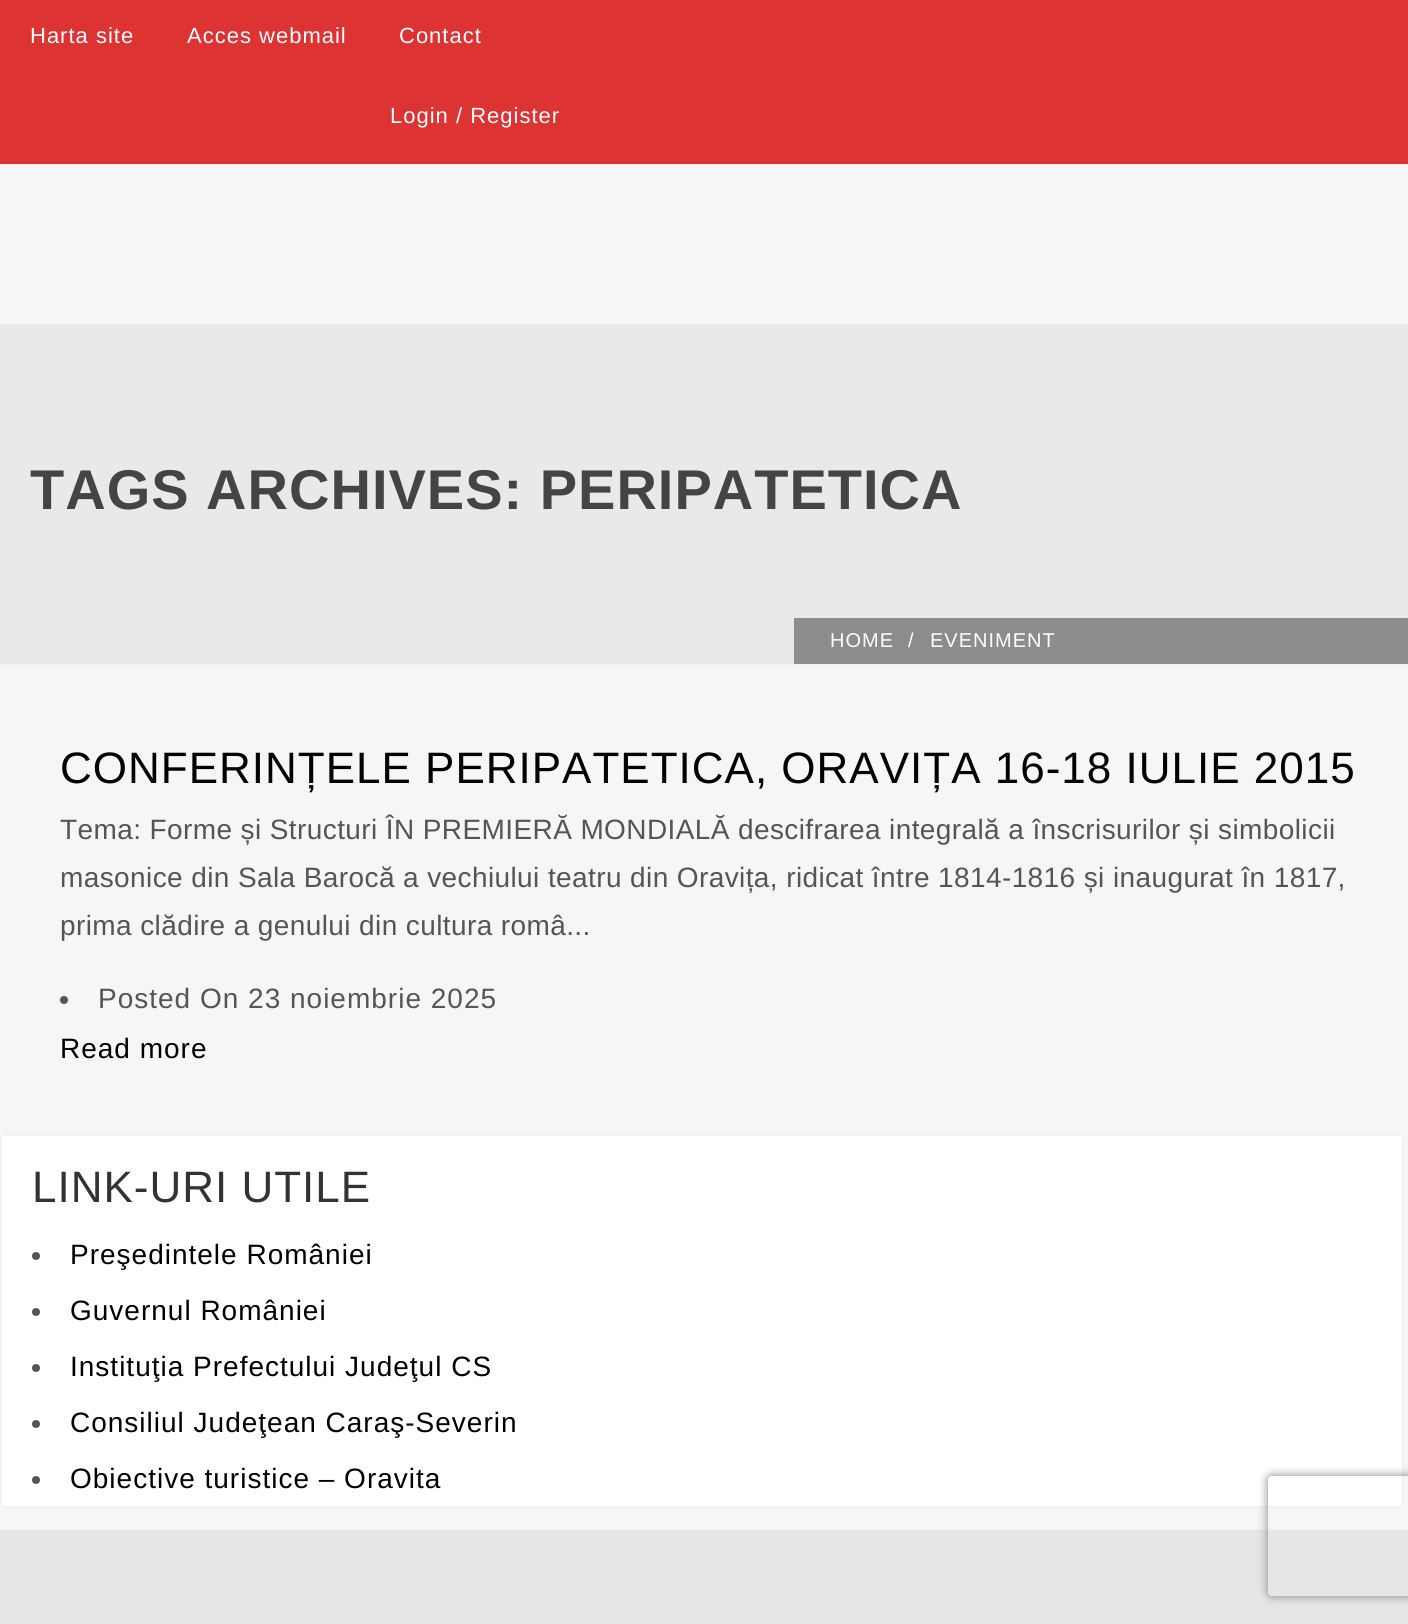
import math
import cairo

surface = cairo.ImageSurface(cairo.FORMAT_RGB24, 1408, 1624)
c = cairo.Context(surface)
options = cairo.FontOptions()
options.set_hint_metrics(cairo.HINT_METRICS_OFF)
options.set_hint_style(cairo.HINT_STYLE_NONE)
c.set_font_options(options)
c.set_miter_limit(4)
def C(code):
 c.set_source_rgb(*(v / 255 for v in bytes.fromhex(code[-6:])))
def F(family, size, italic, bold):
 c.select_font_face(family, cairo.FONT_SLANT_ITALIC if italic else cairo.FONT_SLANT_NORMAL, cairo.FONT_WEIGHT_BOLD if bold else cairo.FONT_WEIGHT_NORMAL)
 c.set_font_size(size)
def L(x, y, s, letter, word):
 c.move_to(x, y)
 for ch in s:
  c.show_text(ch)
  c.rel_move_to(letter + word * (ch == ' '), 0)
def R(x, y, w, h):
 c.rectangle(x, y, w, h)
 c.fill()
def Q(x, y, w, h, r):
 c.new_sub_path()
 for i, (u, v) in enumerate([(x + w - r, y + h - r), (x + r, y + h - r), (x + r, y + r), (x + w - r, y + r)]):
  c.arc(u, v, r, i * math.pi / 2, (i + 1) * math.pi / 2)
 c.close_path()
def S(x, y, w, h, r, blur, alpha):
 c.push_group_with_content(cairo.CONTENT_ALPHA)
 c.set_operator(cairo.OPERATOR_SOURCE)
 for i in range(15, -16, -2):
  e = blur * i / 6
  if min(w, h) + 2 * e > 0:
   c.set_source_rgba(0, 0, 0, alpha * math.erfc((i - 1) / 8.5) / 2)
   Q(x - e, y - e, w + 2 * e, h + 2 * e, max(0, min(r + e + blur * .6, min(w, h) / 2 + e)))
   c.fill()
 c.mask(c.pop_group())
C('f6f6f6')
c.paint()
C('dd3333')
R(0,0,1408,164)
F('Liberation Sans',22,0,0)
C('ffffff')
L(30,43,'Harta site',1,0)
L(187,43,'Acces webmail',1,0)
L(399,43,'Contact',1,0)
L(390,123,'Login / Register',1,0)
C('e9e9e9')
R(0,324,1408,340)
F('Liberation Sans',56,0,1)
C('444444')
L(30,509,'TAGS ARCHIVES: PERIPATETICA',1,0)
C('8c8c8c')
R(794,618,614,46)
F('Liberation Sans',20,0,0)
C('ffffff')
L(830,647,'HOME',1,0)
L(908,647,'/',1,0)
L(930,647,'EVENIMENT',1,0)
C('f3f3f3')
R(0,664,1408,2)
R(0,1528,1408,2)
F('Liberation Sans',44,0,0)
C('000000')
L(60,783,'CONFERINȚELE PERIPATETICA, ORAVIȚA 16-18 IULIE 2015',1,0)
F('Liberation Sans',28,0,0)
C('555555')
L(60,839,'Tema: Forme și Structuri ÎN PREMIERĂ MONDIALĂ descifrarea integrală a înscrisurilor și simbolicii',.4,0)
L(60,887,'masonice din Sala Barocă a vechiului teatru din Oravița, ridicat între 1814-1816 și inaugurat în 1817,',.4,0)
L(60,935,'prima clădire a genului din cultura româ...',.4,0)
c.new_path()
c.arc(64,1000,4,0,2 * math.pi)
c.fill()
L(98,1008,'Posted On 23 noiembrie 2025',1,0)
C('000000')
L(60,1058,'Read more',1,0)
C('ffffff')
Q(0,1134,1404,374,4)
c.fill()
Q(1,1135,1402,372,3)
c.set_source_rgba(0.945,0.945,0.945,0.9)
c.stroke()
F('Liberation Sans',44,0,0)
C('333333')
L(32,1202,'LINK-URI UTILE',1,0)
C('555555')
c.new_path()
c.arc(36,1256,4,0,2 * math.pi)
c.fill()
F('Liberation Sans',28,0,0)
C('000000')
L(70,1264,'Preşedintele României',1,0)
C('555555')
c.new_path()
c.arc(36,1312,4,0,2 * math.pi)
c.fill()
C('000000')
L(70,1320,'Guvernul României',1,0)
C('555555')
c.new_path()
c.arc(36,1368,4,0,2 * math.pi)
c.fill()
C('000000')
L(70,1376,'Instituţia Prefectului Judeţul CS',1,0)
C('555555')
c.new_path()
c.arc(36,1424,4,0,2 * math.pi)
c.fill()
C('000000')
L(70,1432,'Consiliul Judeţean Caraş-Severin',1,0)
C('555555')
c.new_path()
c.arc(36,1480,4,0,2 * math.pi)
c.fill()
C('000000')
L(70,1488,'Obiective turistice – Oravita',1,0)
C('e6e6e6')
R(0,1530,1408,94)
c.save()
c.set_fill_rule(cairo.FILL_RULE_EVEN_ODD)
c.new_path()
c.move_to(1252,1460)
c.line_to(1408,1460)
c.line_to(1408,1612)
c.line_to(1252,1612)
c.close_path()
c.move_to(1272,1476)
c.line_to(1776,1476)
c.curve_to(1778,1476,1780,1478,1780,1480)
c.line_to(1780,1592)
c.curve_to(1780,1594,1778,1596,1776,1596)
c.line_to(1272,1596)
c.curve_to(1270,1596,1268,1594,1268,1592)
c.line_to(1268,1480)
c.curve_to(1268,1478,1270,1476,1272,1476)
c.close_path()
c.clip()
C('808080')
S(1268,1476,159,120,4,5,1)
c.restore()
surface.write_to_png('o.png')
